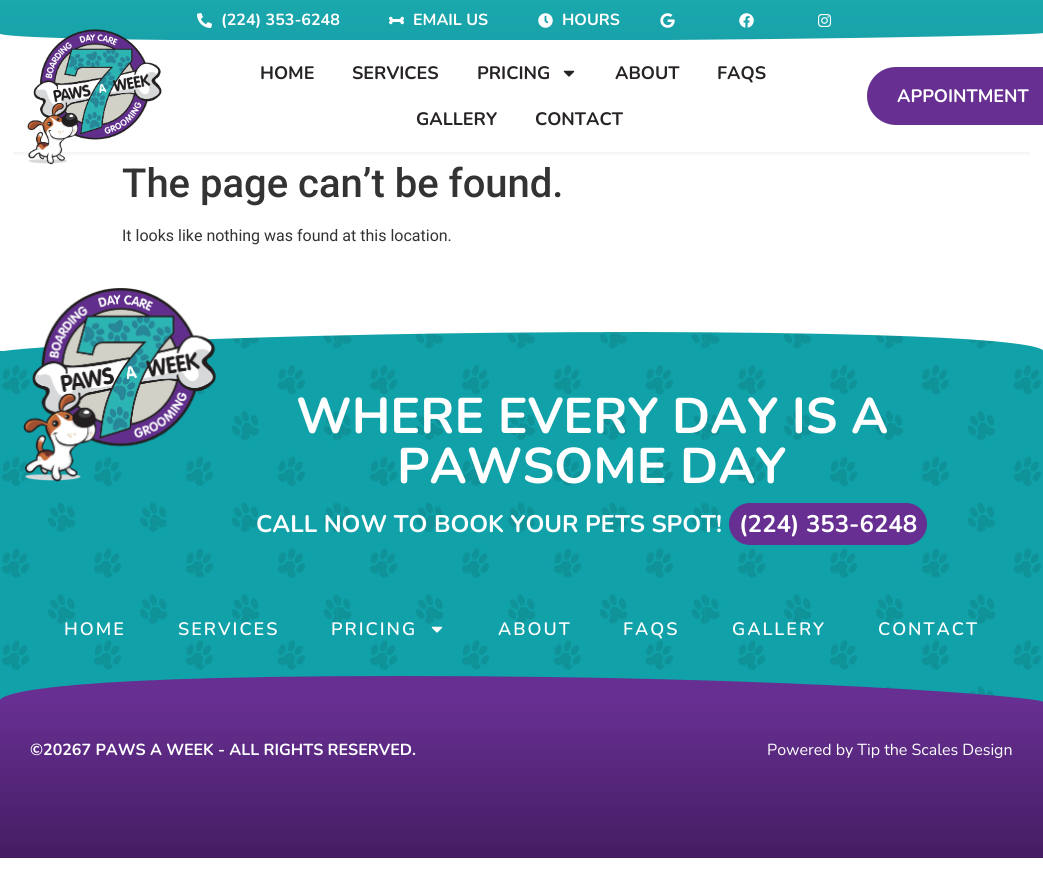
import math
import cairo

surface = cairo.ImageSurface(cairo.FORMAT_RGB24, 1043, 869)
c = cairo.Context(surface)
options = cairo.FontOptions()
options.set_hint_metrics(cairo.HINT_METRICS_OFF)
options.set_hint_style(cairo.HINT_STYLE_NONE)
c.set_font_options(options)
c.set_miter_limit(4)
def C(code):
 c.set_source_rgb(*(v / 255 for v in bytes.fromhex(code[-6:])))
def F(family, size, italic, bold):
 c.select_font_face(family, cairo.FONT_SLANT_ITALIC if italic else cairo.FONT_SLANT_NORMAL, cairo.FONT_WEIGHT_BOLD if bold else cairo.FONT_WEIGHT_NORMAL)
 c.set_font_size(size)
def T(x, y, s):
 c.move_to(x, y)
 c.show_text(s)
def L(x, y, s, letter, word):
 c.move_to(x, y)
 for ch in s:
  c.show_text(ch)
  c.rel_move_to(letter + word * (ch == ' '), 0)
def R(x, y, w, h):
 c.rectangle(x, y, w, h)
 c.fill()
def Q(x, y, w, h, r):
 c.new_sub_path()
 for i, (u, v) in enumerate([(x + w - r, y + h - r), (x + r, y + h - r), (x + r, y + r), (x + w - r, y + r)]):
  c.arc(u, v, r, i * math.pi / 2, (i + 1) * math.pi / 2)
 c.close_path()
def S(x, y, w, h, r, blur, alpha):
 c.push_group_with_content(cairo.CONTENT_ALPHA)
 c.set_operator(cairo.OPERATOR_SOURCE)
 for i in range(15, -16, -2):
  e = blur * i / 6
  if min(w, h) + 2 * e > 0:
   c.set_source_rgba(0, 0, 0, alpha * math.erfc((i - 1) / 8.5) / 2)
   Q(x - e, y - e, w + 2 * e, h + 2 * e, max(0, min(r + e + blur * .6, min(w, h) / 2 + e)))
   c.fill()
 c.mask(c.pop_group())
def I(path, x, y, w, h):
 c.save()
 c.set_source_surface(cairo.ImageSurface.create_from_png(path), x, y)
 c.rectangle(x, y, w, h)
 c.fill()
 c.restore()
C('ffffff')
c.paint()
gradient = cairo.LinearGradient(522,40,522,0)
gradient.add_color_stop_rgba(0,0.098,0.635,0.663,1)
gradient.add_color_stop_rgba(1,0.098,0.659,0.678,1)
c.set_source(gradient)
R(0,0,1043,40)
I('1.png',197,13,15,15)
F('Nunito',16,0,1)
C('ffffff')
T(221,25,'(224) 353-6248')
I('2.png',389,16,15,9)
T(413,25,'EMAIL US')
I('3.png',538,13,15,15)
T(562,25,'HOURS')
I('4.png',660,13,15,15)
I('5.png',739,13,15,15)
I('6.png',818,14,14,13)
c.new_path()
c.move_to(401,41)
c.curve_to(792,41,1043,35,1043,33)
c.line_to(1043,41)
c.line_to(-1,41)
c.line_to(-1,33)
c.curve_to(-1,35,10,41,401,41)
c.close_path()
c.fill()
c.save()
c.rectangle(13,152,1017,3)
c.clip()
C('000000')
S(14,64,1015,84,0,5,.25)
c.restore()
I('7.png',27,29,135,136)
F('Nunito',18,0,1)
C('272324')
T(260,79,'HOME')
T(352,79,'SERVICES')
T(477,79,'PRICING')
I('8.png',563,70,12,7)
T(615,79,'ABOUT')
T(717,79,'FAQS')
T(416,125,'GALLERY')
T(535,125,'CONTACT')
C('662f91')
Q(867,67,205,58,29)
c.fill()
C('ffffff')
T(897,102,'APPOINTMENT')
F('Roboto Medium',40,0,0)
C('333333')
T(122,197,'The page can’t be found.')
F('Roboto',16,0,0)
T(122,241,'It looks like nothing was found at this location.')
I('9.png',0,332,1043,370)
c.save()
c.rectangle(0,331,1043,20)
c.clip()
C('ffffff')
c.new_path()
c.move_to(642,332)
c.curve_to(251,332,0,348,0,352)
c.line_to(0,332)
c.line_to(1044,332)
c.line_to(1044,352)
c.curve_to(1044,348,1033,333,642,332)
c.close_path()
c.fill()
c.restore()
I('10.png',23,287,194,195)
F('Nunito',50,0,1)
C('ffffff')
T(296,433,'WHERE EVERY DAY IS A')
T(397,483,'PAWSOME DAY')
F('Nunito',24,0,1)
T(256,532,'CALL NOW TO BOOK YOUR PETS SPOT!')
C('662f91')
Q(729,503,198,42,21)
c.fill()
C('ffffff')
T(739,532,'(224) 353-6248')
F('Nunito SemiBold',18,0,0)
L(64,635,'HOME',2,0)
L(178,635,'SERVICES',2,0)
L(331,635,'PRICING',2,0)
I('11.png',431,626,12,7)
L(498,635,'ABOUT',2,0)
L(623,635,'FAQS',2,0)
L(732,635,'GALLERY',2,0)
L(878,635,'CONTACT',2,0)
C('662f91')
c.new_path()
c.move_to(1043,704)
c.line_to(1043,702)
c.curve_to(1043,697,792,676,401,676)
c.curve_to(10,676,-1,697,-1,702)
c.line_to(-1,704)
c.close_path()
c.fill()
gradient = cairo.LinearGradient(522,702,522,858)
gradient.add_color_stop_rgba(0,0.4,0.184,0.569,1)
gradient.add_color_stop_rgba(1,0.271,0.114,0.388,1)
c.set_source(gradient)
R(0,704,1043,154)
F('Nunito',16,0,1)
C('ffffff')
T(30,755,'©20267 PAWS A WEEK - ALL RIGHTS RESERVED.')
F('Nunito',16,0,0)
T(767,755,'Powered by Tip the Scales Design')
surface.write_to_png('o.png')
